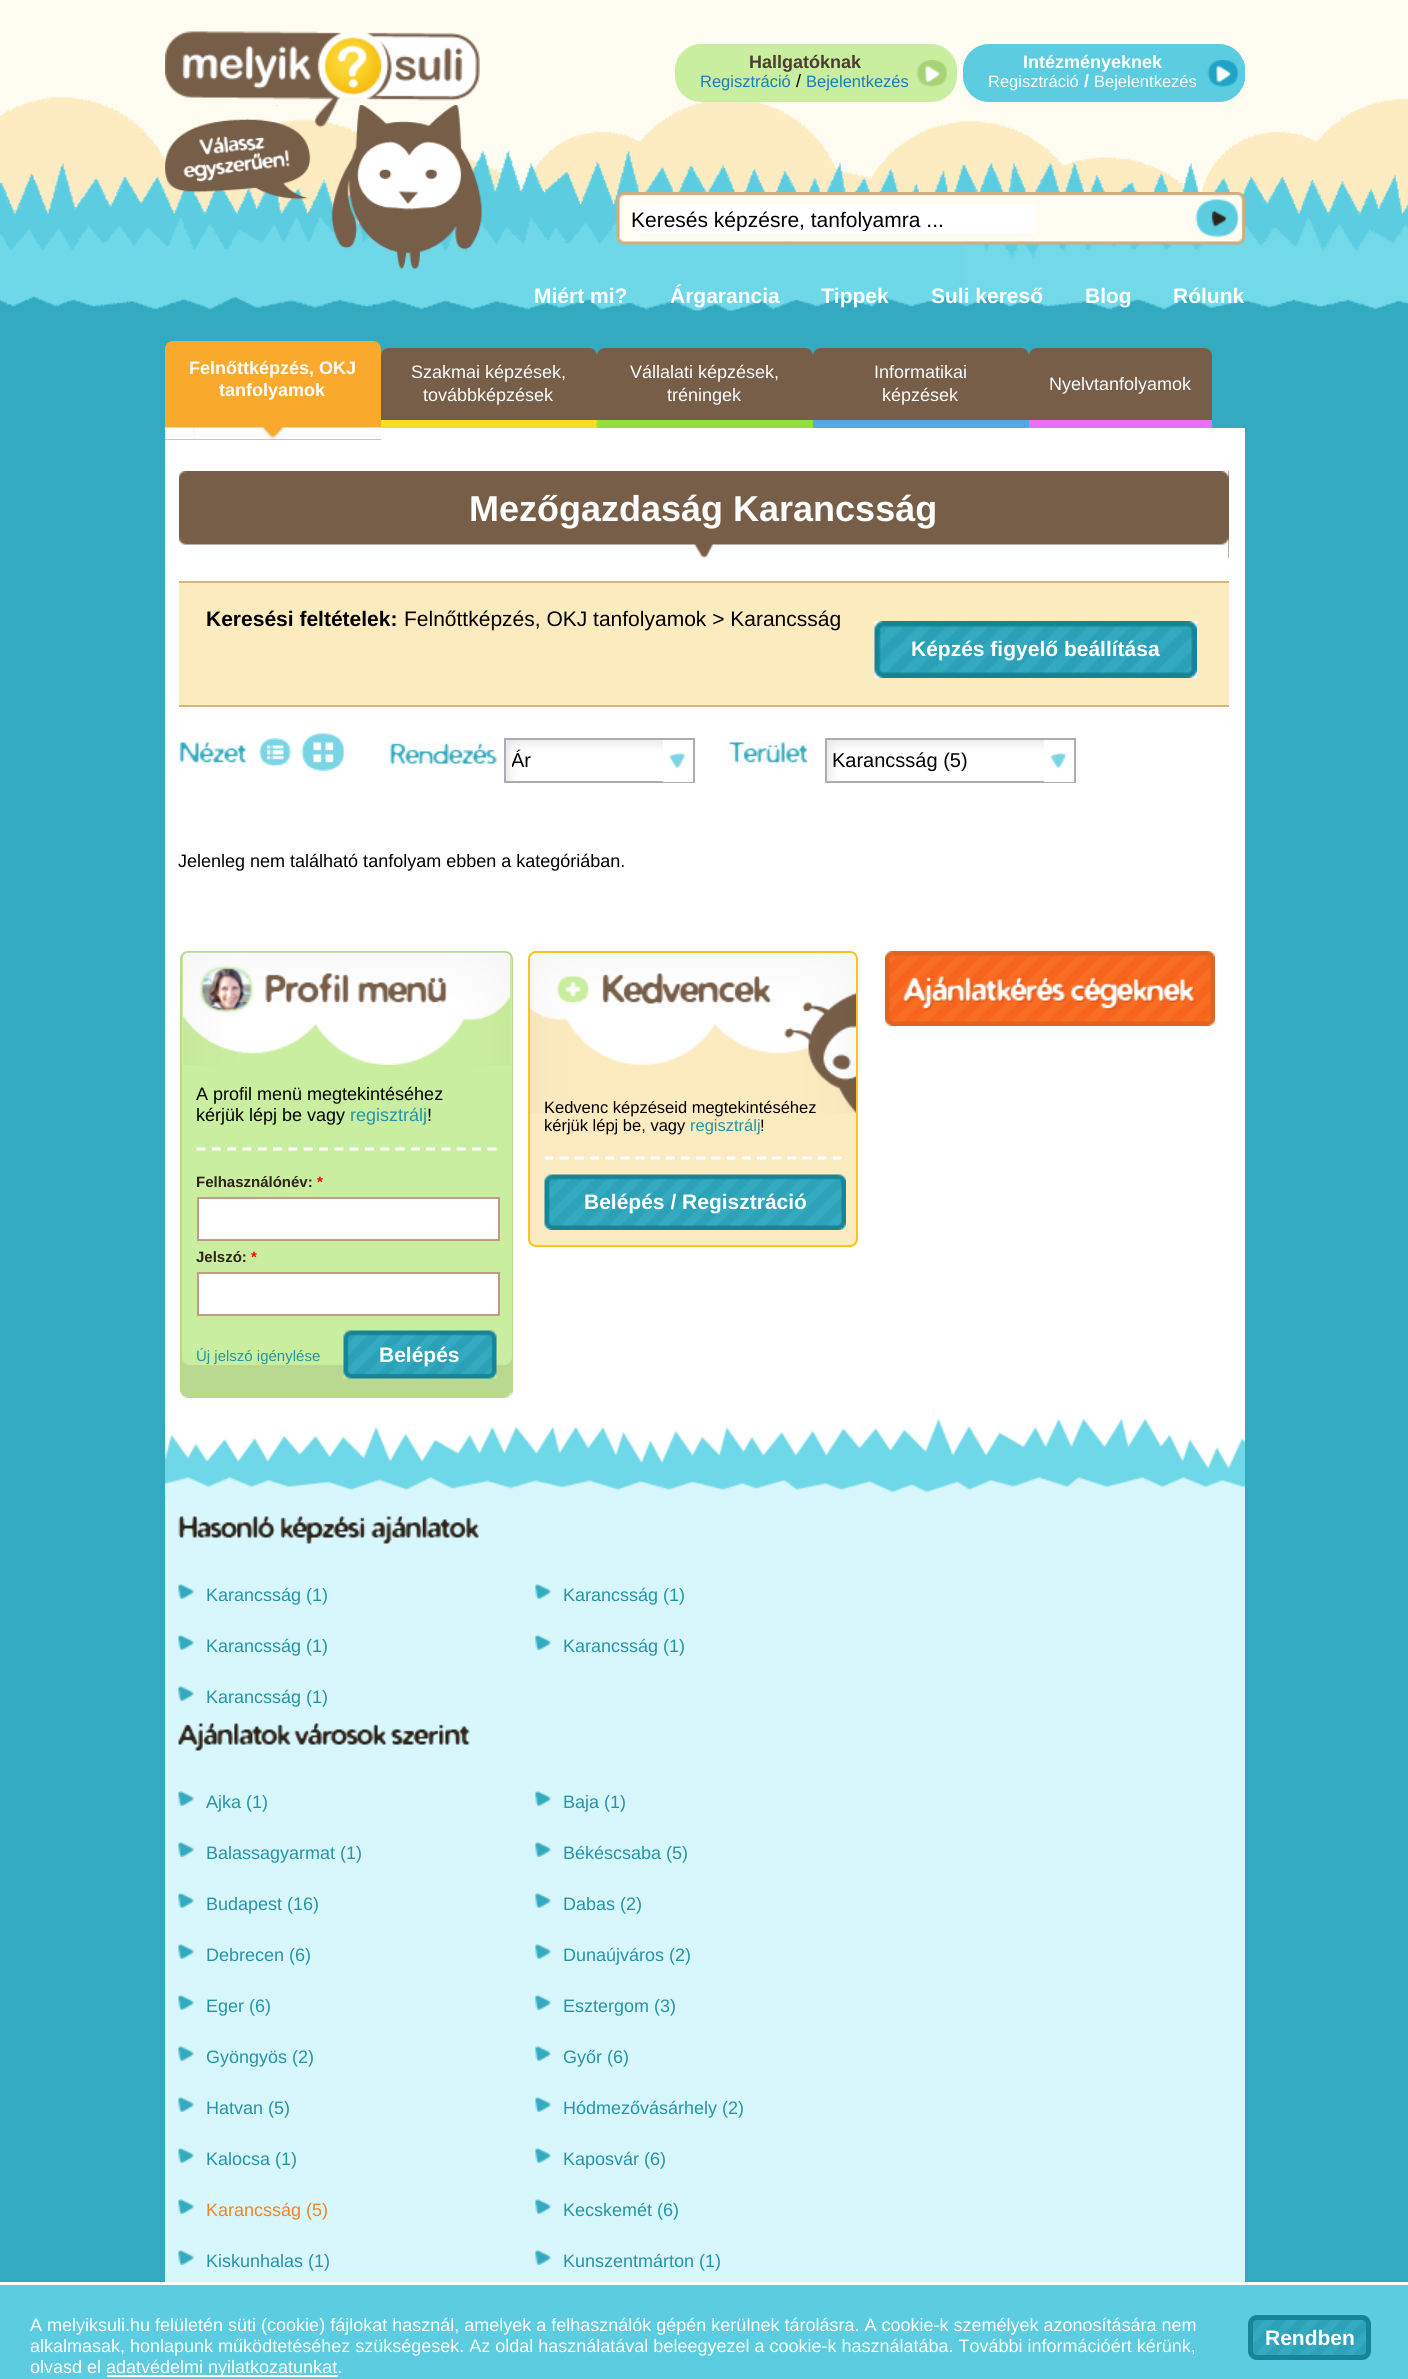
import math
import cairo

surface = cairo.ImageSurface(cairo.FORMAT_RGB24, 1408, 2379)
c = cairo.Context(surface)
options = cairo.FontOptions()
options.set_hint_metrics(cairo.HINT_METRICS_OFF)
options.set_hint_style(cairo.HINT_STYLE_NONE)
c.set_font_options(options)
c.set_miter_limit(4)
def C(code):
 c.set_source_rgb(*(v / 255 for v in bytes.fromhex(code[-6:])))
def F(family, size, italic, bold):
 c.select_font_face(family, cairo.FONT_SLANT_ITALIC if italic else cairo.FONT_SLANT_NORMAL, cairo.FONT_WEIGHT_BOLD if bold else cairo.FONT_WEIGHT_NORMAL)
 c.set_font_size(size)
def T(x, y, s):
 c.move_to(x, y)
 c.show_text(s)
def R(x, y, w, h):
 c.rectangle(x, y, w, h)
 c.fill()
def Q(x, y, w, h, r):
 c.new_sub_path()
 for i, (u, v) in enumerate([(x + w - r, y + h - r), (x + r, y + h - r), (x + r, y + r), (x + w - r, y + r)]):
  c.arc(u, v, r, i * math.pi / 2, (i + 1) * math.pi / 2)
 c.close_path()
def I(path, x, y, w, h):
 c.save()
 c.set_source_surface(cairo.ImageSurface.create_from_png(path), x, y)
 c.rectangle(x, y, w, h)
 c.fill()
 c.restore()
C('33aabf')
c.paint()
I('1.png',0,0,1408,311)
I('2.png',165,105,317,164)
I('3.png',165,31,315,97)
C('caee9f')
Q(675,44,282,58,26)
c.fill()
I('4.png',916,60,31,27)
F('Liberation Sans',18,0,1)
C('4a3d32')
T(749,68,'Hallgatóknak')
F('Liberation Sans',16.5,0,0)
C('1a7dc0')
T(700,87,'Regisztráció')
F('Liberation Sans',18,0,0)
C('000000')
T(796,87,'/')
F('Liberation Sans',16.5,0,0)
C('1a7dc0')
T(806,87,'Bejelentkezés')
C('5ccce0')
Q(963,44,282,58,26)
c.fill()
I('5.png',1207,60,38,27)
F('Liberation Sans',18,0,1)
C('ffffff')
T(1023,68,'Intézményeknek')
F('Liberation Sans',16.5,0,0)
T(988,87,'Regisztráció')
F('Liberation Sans',18,0,1)
T(1084,87,'/')
F('Liberation Sans',16.5,0,0)
T(1094,87,'Bejelentkezés')
I('6.png',616,192,575,53)
c.save()
c.rectangle(624,207,567,24)
c.clip()
F('Liberation Sans',21,0,0)
C('000000')
T(631,227,'Keresés képzésre, tanfolyamra ...')
c.restore()
I('7.png',1191,192,54,53)
F('Liberation Sans',21,0,1)
T(534,303,'Miért mi?')
T(670,303,'Árgarancia')
T(821,303,'Tippek')
T(931,303,'Suli kereső')
T(1085,303,'Blog')
T(1173,303,'Rólunk')
R(165,428,1080,990)
C('f9a92b')
c.new_path()
c.move_to(173,341)
c.line_to(373,341)
c.curve_to(377.5,341,381,344.5,381,349)
c.line_to(381,440)
c.line_to(165,440)
c.line_to(165,349)
c.curve_to(165,344.5,168.5,341,173,341)
c.close_path()
c.fill()
I('8.png',165,427,216,13)
F('Liberation Sans',18,0,1)
C('ffffff')
T(189,374,'Felnőttképzés, OKJ')
T(219,396,'tanfolyamok')
C('775e49')
c.new_path()
c.move_to(389,348)
c.line_to(589,348)
c.curve_to(593.5,348,597,351.5,597,356)
c.line_to(597,428)
c.line_to(381,428)
c.line_to(381,356)
c.curve_to(381,351.5,384.5,348,389,348)
c.close_path()
c.fill()
C('f9dd22')
R(381,420,216,8)
F('Liberation Sans',18,0,0)
C('ffffff')
T(411,378,'Szakmai képzések,')
T(423,401,'továbbképzések')
C('775e49')
c.new_path()
c.move_to(605,348)
c.line_to(805,348)
c.curve_to(809.5,348,813,351.5,813,356)
c.line_to(813,428)
c.line_to(597,428)
c.line_to(597,356)
c.curve_to(597,351.5,600.5,348,605,348)
c.close_path()
c.fill()
C('97dd3f')
R(597,420,216,8)
C('ffffff')
T(630,378,'Vállalati képzések,')
T(667,401,'tréningek')
C('775e49')
c.new_path()
c.move_to(821,348)
c.line_to(1021,348)
c.curve_to(1025.5,348,1029,351.5,1029,356)
c.line_to(1029,428)
c.line_to(813,428)
c.line_to(813,356)
c.curve_to(813,351.5,816.5,348,821,348)
c.close_path()
c.fill()
C('54a9e4')
R(813,420,216,8)
C('ffffff')
T(874,378,'Informatikai')
T(882,401,'képzések')
C('775e49')
c.new_path()
c.move_to(1037,348)
c.line_to(1204,348)
c.curve_to(1208.5,348,1212,351.5,1212,356)
c.line_to(1212,428)
c.line_to(1029,428)
c.line_to(1029,356)
c.curve_to(1029,351.5,1032.5,348,1037,348)
c.close_path()
c.fill()
C('eb6ff6')
R(1029,420,183,8)
C('ffffff')
T(1049,390,'Nyelvtanfolyamok')
C('775e49')
R(179,471,1050,87)
I('9.png',179,537,1050,21)
I('10.png',179,471,1050,8)
F('Liberation Sans',36,0,1)
C('ffffff')
T(469,521,'Mezőgazdaság Karancsság')
C('fdebc0')
R(179,583,1050,122)
C('d8b37a')
R(179,581,1050,2)
R(179,705,1050,2)
F('Liberation Sans',21,0,1)
C('000000')
T(206,626,'Keresési feltételek:')
F('Liberation Sans',21,0,0)
T(404,626,'Felnőttképzés, OKJ tanfolyamok > Karancsság')
I('11.png',874,621,323,57)
F('Liberation Sans',21,0,1)
C('ffffff')
T(911,656,'Képzés figyelő beállítása')
I('12.png',178,739,70,25)
I('13.png',259,738,32,29)
I('14.png',301,733,44,38)
I('15.png',387,741,112,24)
I('16.png',506,740,157,41)
c.rectangle(505,739,189,43)
C('adabb6')
c.stroke()
c.save()
c.rectangle(512,749,157,25)
c.clip()
F('Liberation Sans',20,0,0)
C('000000')
T(511,767,'Ár')
c.restore()
C('ffffff')
R(663,781,30,1)
I('17.png',669,753,17,15)
I('18.png',727,741,83,24)
I('19.png',827,740,217,41)
c.rectangle(826,739,249,43)
C('adabb6')
c.stroke()
F('Liberation Sans',20,0,0)
C('000000')
T(832,767,'Karancsság (5)')
C('ffffff')
R(1044,781,30,1)
I('20.png',1050,753,17,15)
F('Liberation Sans',18,0,0)
C('000000')
T(178,867,'Jelenleg nem található tanfolyam ebben a kategóriában.')
I('21.png',885,951,330,75)
C('b9d991')
Q(180,951,333,447,8)
c.fill()
I('22.png',180,1391,332,7)
C('caee9f')
Q(182,953,330,412,8)
c.fill()
I('23.png',183,952,327,113)
C('000000')
T(196,1100,'A profil menü megtekintéséhez')
T(196,1121,'kérjük lépj be vagy')
C('2594a6')
T(350,1121,'regisztrálj')
C('000000')
T(427,1121,'!')
c.new_path()
c.move_to(196.5,1149)
c.line_to(496.5,1149)
C('ffffff')
c.set_line_width(3)
c.set_dash([9,6.31])
c.stroke()
F('Liberation Sans',15,0,1)
C('2e241b')
T(196,1187,'Felhasználónév:')
C('ff0000')
T(317,1187,'*')
C('ffffff')
c.rectangle(198,1198,301,42)
c.fill_preserve()
C('bf9e80')
c.set_line_width(2)
c.set_dash([])
c.stroke()
C('2e241b')
T(196,1262,'Jelszó:')
C('ff0000')
T(251,1262,'*')
C('ffffff')
c.rectangle(198,1273,301,42)
c.fill_preserve()
C('bf9e80')
c.stroke()
F('Liberation Sans',15,0,0)
C('2594a6')
T(196,1361,'Új jelszó igénylése')
I('24.png',343,1330,154,49)
F('Liberation Sans',21,0,1)
C('ffffff')
T(379,1362,'Belépés')
C('fcebc0')
Q(528,951,330,296,8)
c.fill()
I('25.png',529,952,328,161)
Q(529,952,328,294,7)
C('f9c420')
c.stroke()
F('Liberation Sans',16.5,0,0)
C('000000')
T(544,1113,'Kedvenc képzéseid megtekintéséhez')
T(544,1131,'kérjük lépj be, vagy')
C('2594a6')
T(690,1131,'regisztrálj')
C('000000')
T(760,1131,'!')
c.new_path()
c.move_to(544.5,1158)
c.line_to(841.5,1158)
C('ffffff')
c.set_line_width(3)
c.set_dash([9,6.17])
c.stroke()
I('26.png',544,1174,302,56)
F('Liberation Sans',21,0,1)
T(584,1209,'Belépés / Regisztráció')
C('d7f7fc')
R(165,1500,1080,782)
I('27.png',165,1417,1080,83)
I('28.png',178,1516,301,28)
I('29.png',178,1584,16,15)
F('Liberation Sans',18,0,0)
C('2594a6')
T(206,1601,'Karancsság (1)')
I('29.png',535,1584,16,15)
T(563,1601,'Karancsság (1)')
I('29.png',178,1635,16,15)
T(206,1652,'Karancsság (1)')
I('29.png',535,1635,16,15)
T(563,1652,'Karancsság (1)')
I('29.png',178,1686,16,15)
T(206,1703,'Karancsság (1)')
I('30.png',178,1723,292,28)
I('29.png',178,1791,16,15)
T(206,1808,'Ajka (1)')
I('29.png',535,1791,16,15)
T(563,1808,'Baja (1)')
I('29.png',178,1842,16,15)
T(206,1859,'Balassagyarmat (1)')
I('29.png',535,1842,16,15)
T(563,1859,'Békéscsaba (5)')
I('29.png',178,1893,16,15)
T(206,1910,'Budapest (16)')
I('29.png',535,1893,16,15)
T(563,1910,'Dabas (2)')
I('29.png',178,1944,16,15)
T(206,1961,'Debrecen (6)')
I('29.png',535,1944,16,15)
T(563,1961,'Dunaújváros (2)')
I('29.png',178,1995,16,15)
T(206,2012,'Eger (6)')
I('29.png',535,1995,16,15)
T(563,2012,'Esztergom (3)')
I('29.png',178,2046,16,15)
T(206,2063,'Gyöngyös (2)')
I('29.png',535,2046,16,15)
T(563,2063,'Győr (6)')
I('29.png',178,2097,16,15)
T(206,2114,'Hatvan (5)')
I('29.png',535,2097,16,15)
T(563,2114,'Hódmezővásárhely (2)')
I('29.png',178,2148,16,15)
T(206,2165,'Kalocsa (1)')
I('29.png',535,2148,16,15)
T(563,2165,'Kaposvár (6)')
I('29.png',178,2199,16,15)
C('f68220')
T(206,2216,'Karancsság (5)')
I('29.png',535,2199,16,15)
C('2594a6')
T(563,2216,'Kecskemét (6)')
I('29.png',178,2250,16,15)
T(206,2267,'Kiskunhalas (1)')
I('29.png',535,2250,16,15)
T(563,2267,'Kunszentmárton (1)')
C('5ccce0')
R(0,2285,1408,94)
C('ffffff')
R(0,2282,1408,3)
T(30,2331,'A melyiksuli.hu felületén süti (cookie) fájlokat használ, amelyek a felhasználók gépén kerülnek tárolásra. A cookie-k személyek azonosítására nem')
T(30,2352,'alkalmasak, honlapunk működtetéséhez szükségesek. Az oldal használatával beleegyezel a cookie-k használatába. További információért kérünk,')
T(30,2373,'olvasd el')
R(107,2375,231,2)
T(106,2373,'adatvédelmi nyilatkozatunkat.')
I('31.png',1253,2320,113,35)
Q(1250.5,2317.5,118,40,6.5)
C('168599')
c.set_line_width(5)
c.set_dash([])
c.stroke()
F('Liberation Sans',21,0,1)
C('ffffff')
T(1265,2345,'Rendben')
surface.write_to_png('o.png')
